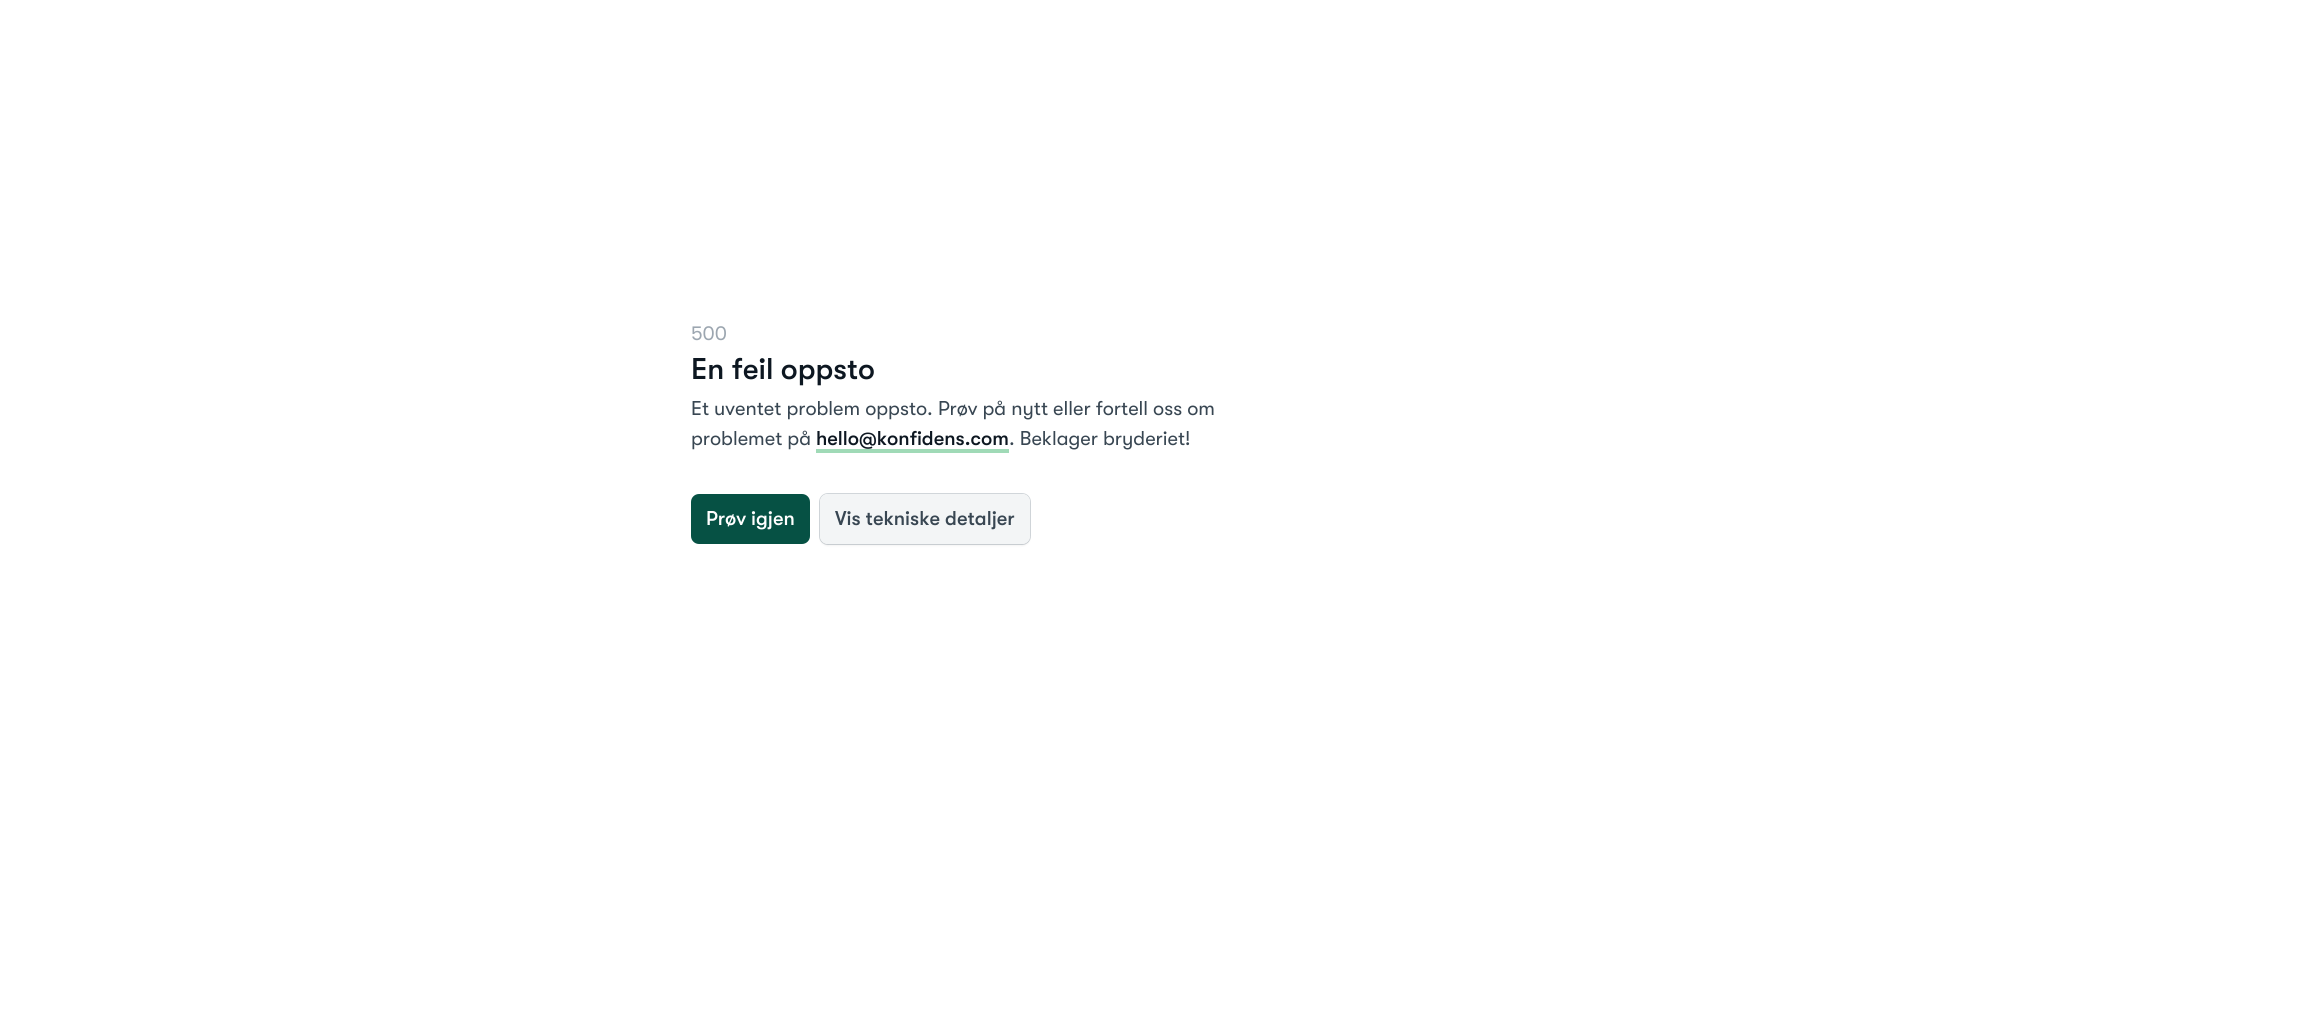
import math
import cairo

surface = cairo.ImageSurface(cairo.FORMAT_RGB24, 2302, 1031)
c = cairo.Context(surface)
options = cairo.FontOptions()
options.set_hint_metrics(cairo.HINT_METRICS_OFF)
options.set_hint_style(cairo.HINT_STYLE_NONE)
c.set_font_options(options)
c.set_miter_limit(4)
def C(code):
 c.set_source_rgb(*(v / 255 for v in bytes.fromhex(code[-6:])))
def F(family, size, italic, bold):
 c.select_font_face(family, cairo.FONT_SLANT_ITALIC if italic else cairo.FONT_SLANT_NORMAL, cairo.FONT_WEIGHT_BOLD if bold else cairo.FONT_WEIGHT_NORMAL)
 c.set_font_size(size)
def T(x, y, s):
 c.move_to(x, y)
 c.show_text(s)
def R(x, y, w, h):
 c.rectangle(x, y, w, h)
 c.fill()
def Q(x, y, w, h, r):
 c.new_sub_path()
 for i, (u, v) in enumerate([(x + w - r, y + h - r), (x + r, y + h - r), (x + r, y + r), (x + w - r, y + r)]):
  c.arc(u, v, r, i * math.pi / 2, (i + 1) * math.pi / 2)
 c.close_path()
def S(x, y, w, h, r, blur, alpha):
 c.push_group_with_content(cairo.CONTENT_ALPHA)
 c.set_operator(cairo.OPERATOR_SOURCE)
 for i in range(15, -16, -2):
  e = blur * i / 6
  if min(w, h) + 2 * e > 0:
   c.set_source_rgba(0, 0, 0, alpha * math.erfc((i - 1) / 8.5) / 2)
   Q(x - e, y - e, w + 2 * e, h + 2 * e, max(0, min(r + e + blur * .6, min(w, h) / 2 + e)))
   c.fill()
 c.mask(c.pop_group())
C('ffffff')
c.paint()
F('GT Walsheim',20,0,0)
C('9ca6b0')
T(691,340,'500')
F('GT Walsheim Medium',30,0,0)
C('0d1721')
T(691,379,'En feil oppsto')
F('GT Walsheim',20,0,0)
C('384652')
T(691,415,'Et uventet problem oppsto. Prøv på nytt eller fortell oss om')
T(691,445,'problemet på')
F('GT Walsheim Medium',20,0,0)
C('0d1721')
T(816,445,'hello@konfidens.com')
C('a0dab7')
R(816,449,193,4)
F('GT Walsheim',20,0,0)
C('384652')
T(1009,445,'. Beklager bryderiet!')
C('065144')
Q(691,494,119,50,8)
c.fill()
F('GT Walsheim Medium',20,0,0)
C('ffffff')
T(706,525,'Prøv igjen')
C('000000')
S(820,496,210,50,8,1,.05)
Q(819.5,493.5,211,51,8.5)
c.set_source_rgba(0,0.122,0.2,0.18)
c.set_line_width(1)
c.stroke()
C('f3f5f6')
Q(820,494,210,50,8)
c.fill()
C('384652')
T(835,525,'Vis tekniske detaljer')
surface.write_to_png('o.png')
